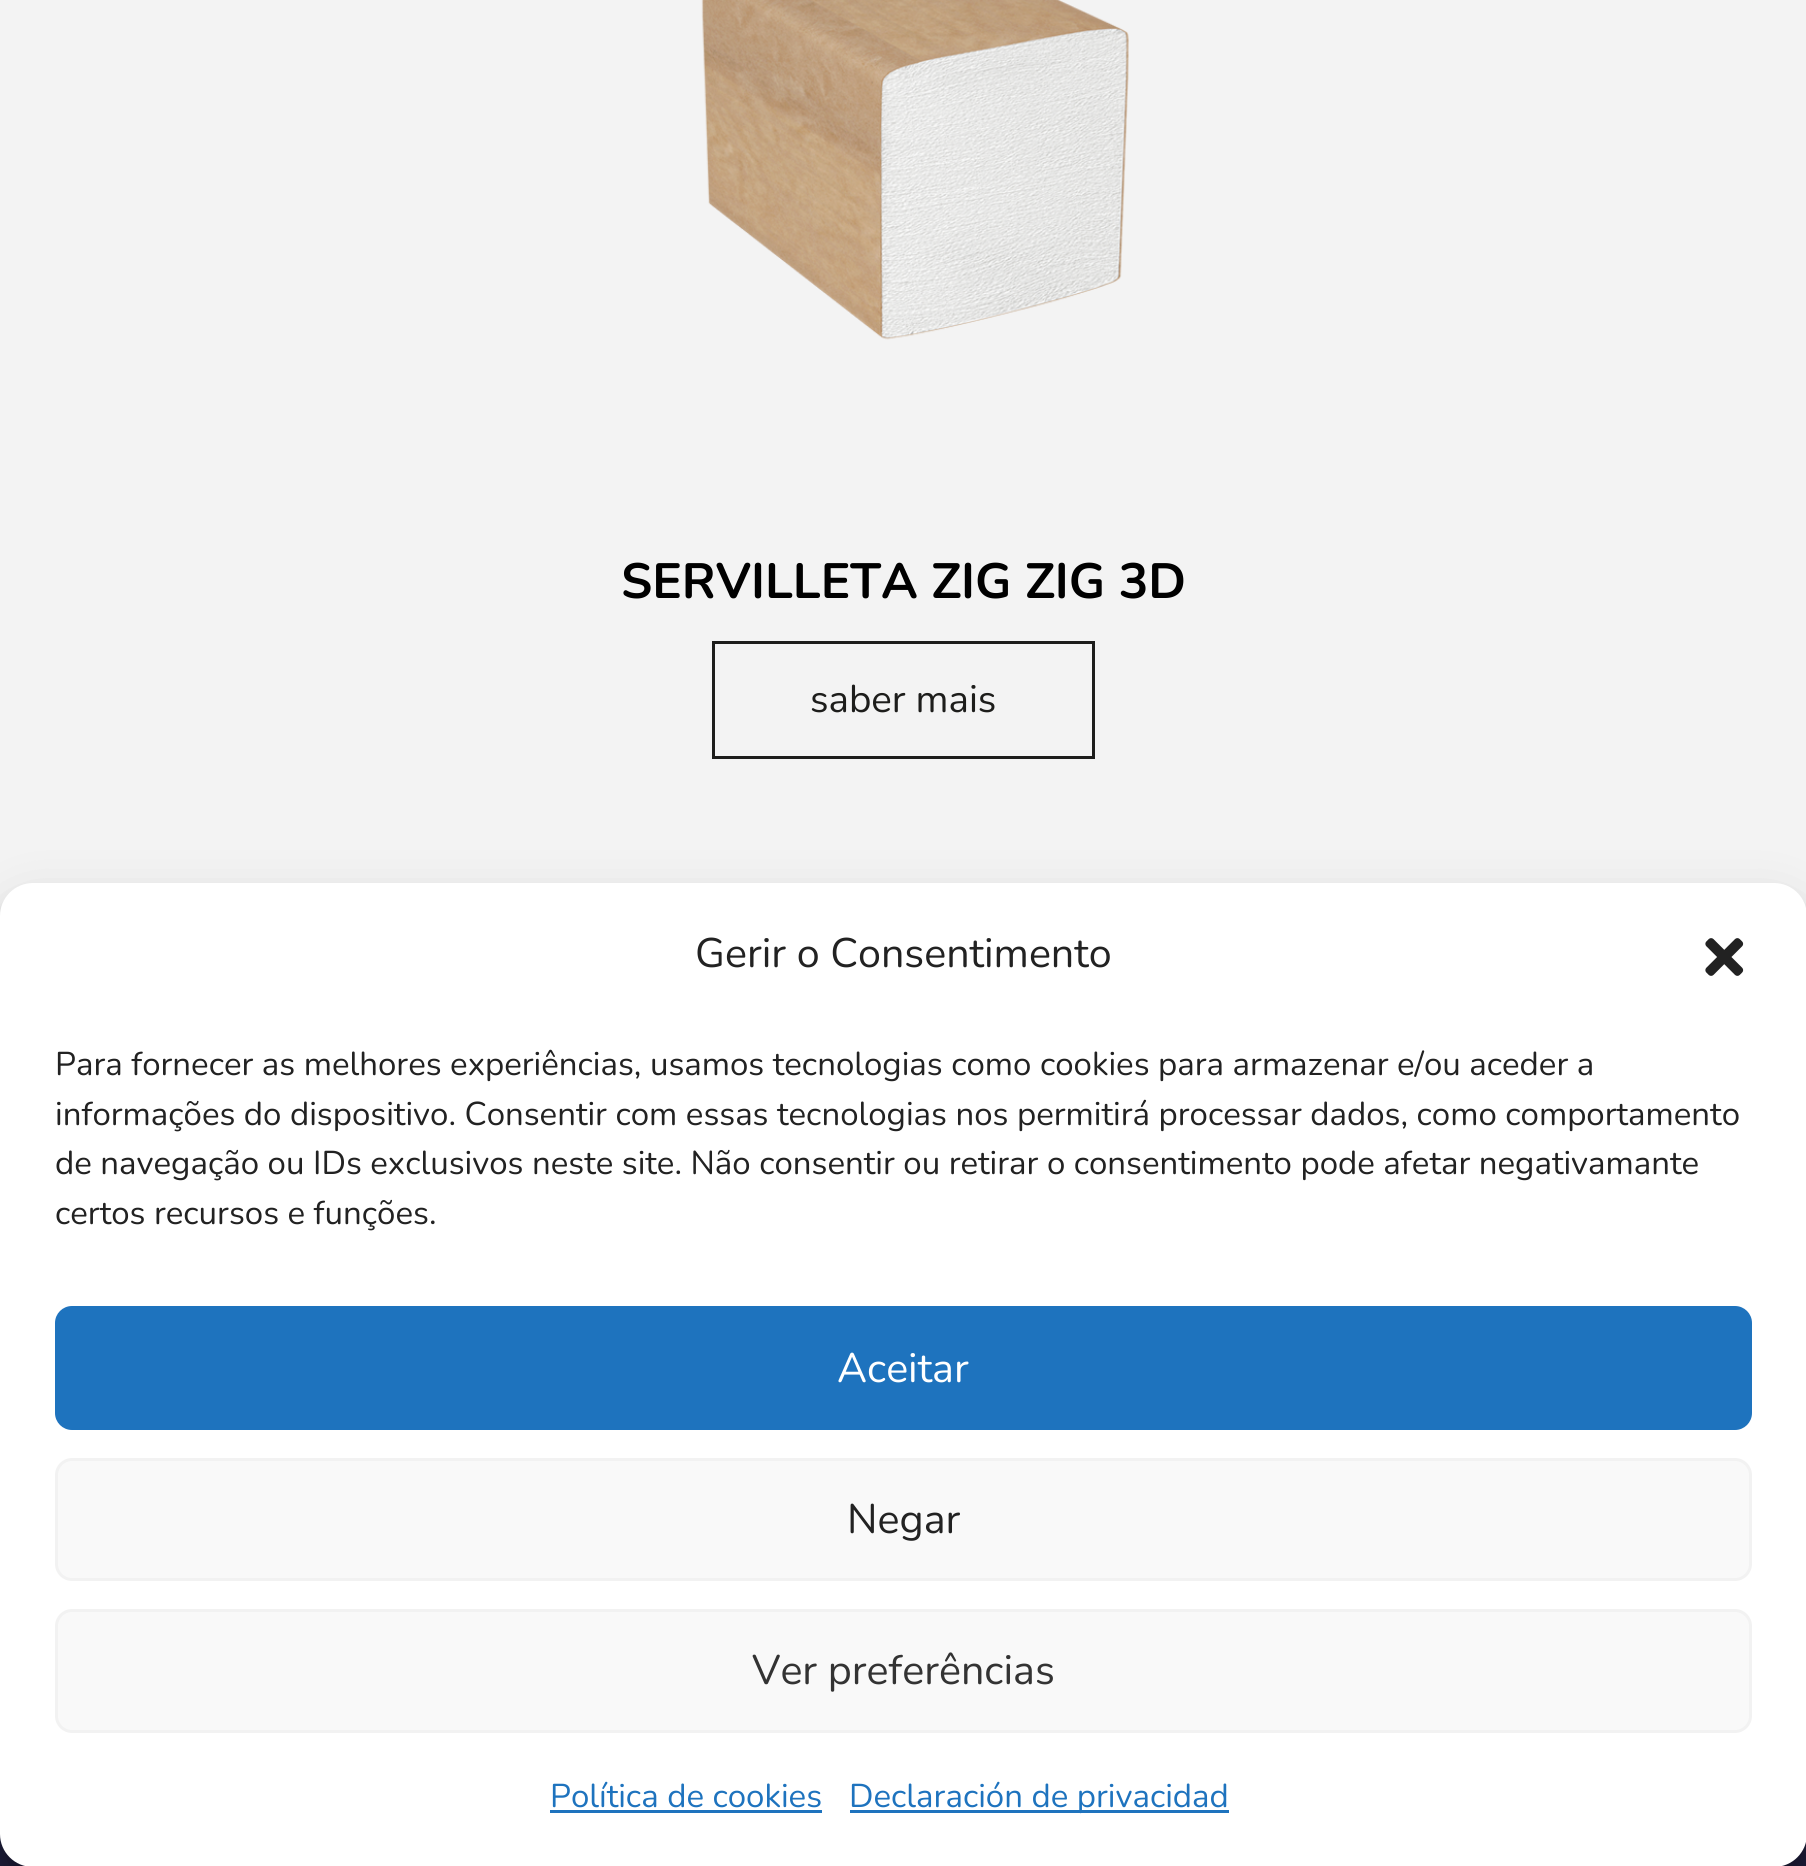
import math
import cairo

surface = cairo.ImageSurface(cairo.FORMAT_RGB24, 1806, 1866)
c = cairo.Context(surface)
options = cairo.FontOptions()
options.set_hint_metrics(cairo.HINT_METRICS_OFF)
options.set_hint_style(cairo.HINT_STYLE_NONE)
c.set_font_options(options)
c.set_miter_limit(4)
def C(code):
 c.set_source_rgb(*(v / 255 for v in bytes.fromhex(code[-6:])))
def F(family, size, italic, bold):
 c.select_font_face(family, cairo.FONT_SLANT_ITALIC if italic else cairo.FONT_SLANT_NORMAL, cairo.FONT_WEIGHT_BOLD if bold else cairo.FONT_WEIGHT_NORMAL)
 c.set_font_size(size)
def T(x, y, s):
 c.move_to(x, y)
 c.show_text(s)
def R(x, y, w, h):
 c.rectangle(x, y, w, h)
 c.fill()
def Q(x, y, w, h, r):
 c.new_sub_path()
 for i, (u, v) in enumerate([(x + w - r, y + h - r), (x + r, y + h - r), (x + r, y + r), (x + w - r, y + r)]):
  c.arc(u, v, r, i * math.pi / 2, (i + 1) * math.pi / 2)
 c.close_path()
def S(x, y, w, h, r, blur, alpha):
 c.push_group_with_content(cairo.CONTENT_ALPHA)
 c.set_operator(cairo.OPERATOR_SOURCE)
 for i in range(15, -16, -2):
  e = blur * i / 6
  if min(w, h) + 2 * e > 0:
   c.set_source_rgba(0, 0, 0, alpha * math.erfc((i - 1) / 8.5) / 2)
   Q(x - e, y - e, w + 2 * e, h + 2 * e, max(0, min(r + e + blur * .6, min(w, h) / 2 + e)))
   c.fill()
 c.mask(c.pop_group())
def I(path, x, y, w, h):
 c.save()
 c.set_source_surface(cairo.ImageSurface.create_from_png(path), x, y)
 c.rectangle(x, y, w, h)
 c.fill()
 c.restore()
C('f3f3f3')
c.paint()
I('1.png',701,0,428,340)
F('Nunito',49.5,0,1)
C('000000')
T(621,598,'SERVILLETA ZIG ZIG 3D')
c.rectangle(713.5,642.5,380,115)
C('1d1d1b')
c.set_line_width(3)
c.stroke()
F('Nunito',38.5,0,0)
T(810,712,'saber mais')
C('1f1e3d')
R(0,1834,1806,32)
C('000000')
S(0,899,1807,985,33,8,.23)
S(0,910,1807,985,33,27.5,.19)
C('ffffff')
Q(0,883,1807,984,33)
c.fill()
F('Nunito',41.25,0,0)
C('222222')
T(695,967,'Gerir o Consentimento')
I('2.png',1705,938,39,38)
F('Nunito',33,0,0)
T(55,1075,'Para fornecer as melhores experiências, usamos tecnologias como cookies para armazenar e/ou aceder a')
T(55,1125,'informações do dispositivo. Consentir com essas tecnologias nos permitirá processar dados, como comportamento')
T(55,1174,'de navegação ou IDs exclusivos neste site. Não consentir ou retirar o consentimento pode afetar negativamante')
T(55,1224,'certos recursos e funções.')
C('1e73be')
Q(56.5,1307.5,1694,121,15.5)
c.fill_preserve()
c.stroke()
F('Nunito',41.25,0,0)
C('ffffff')
T(837,1382,'Aceitar')
C('f9f9f9')
Q(56.5,1459.5,1694,120,15.5)
c.fill_preserve()
C('f2f2f2')
c.stroke()
C('222222')
T(847,1533,'Negar')
C('f9f9f9')
Q(56.5,1610.5,1694,121,15.5)
c.fill_preserve()
C('f2f2f2')
c.stroke()
C('333333')
T(752,1684,'Ver preferências')
F('Nunito',33,0,0)
C('1e73be')
T(550,1807,'Política de cookies')
R(550,1810,272,3)
R(850,1810,379,3)
T(849,1807,'Declaración de privacidad')
surface.write_to_png('o.png')
